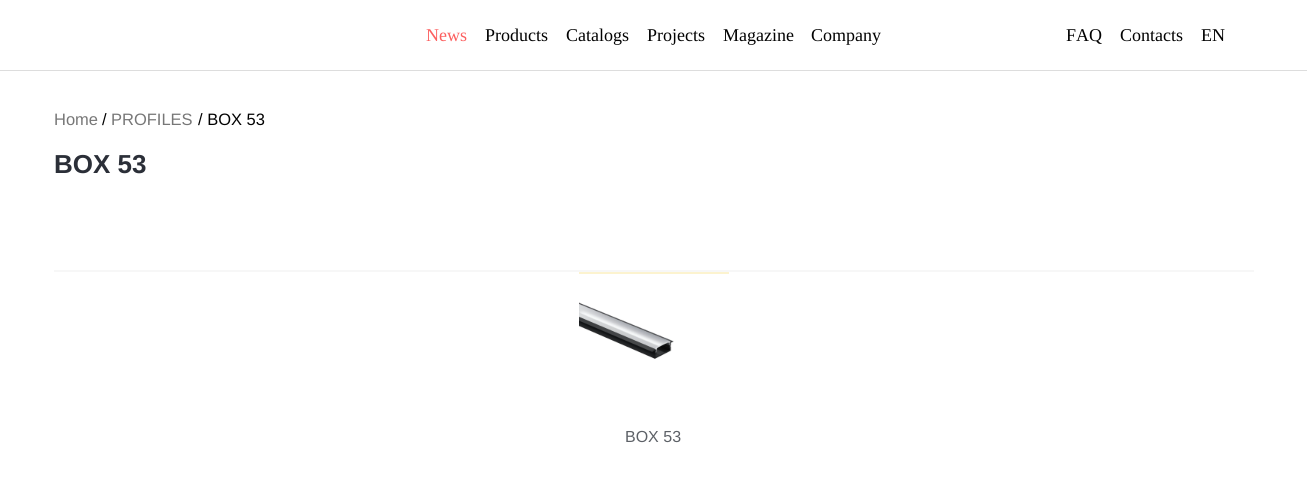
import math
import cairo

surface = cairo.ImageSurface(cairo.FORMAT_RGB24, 1307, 501)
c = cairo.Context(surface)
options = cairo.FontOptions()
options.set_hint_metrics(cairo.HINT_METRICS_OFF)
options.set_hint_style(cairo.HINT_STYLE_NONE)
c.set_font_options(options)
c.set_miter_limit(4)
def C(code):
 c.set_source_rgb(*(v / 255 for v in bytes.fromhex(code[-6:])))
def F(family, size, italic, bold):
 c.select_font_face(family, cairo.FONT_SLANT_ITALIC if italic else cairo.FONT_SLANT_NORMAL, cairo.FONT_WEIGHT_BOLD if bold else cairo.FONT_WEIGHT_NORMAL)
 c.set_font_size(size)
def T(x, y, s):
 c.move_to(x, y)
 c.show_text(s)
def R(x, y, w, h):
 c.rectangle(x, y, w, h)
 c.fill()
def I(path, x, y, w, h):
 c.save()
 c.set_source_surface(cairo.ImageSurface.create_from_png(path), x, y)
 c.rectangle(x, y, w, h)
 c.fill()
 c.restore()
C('ffffff')
c.paint()
C('dddddd')
R(0,70,1307,1)
F('Liberation Serif',18,0,0)
C('fc5f5f')
T(426,41,'News')
C('020202')
T(485,41,'Products')
T(566,41,'Catalogs')
T(647,41,'Projects')
T(723,41,'Magazine')
T(811,41,'Company')
T(1066,41,'FAQ')
T(1120,41,'Contacts')
T(1201,41,'EN')
F('Liberation Sans',16.5,0,0)
C('777777')
T(54,125,'Home')
C('020202')
T(102,125,'/')
C('777777')
T(111,125,'PROFILES')
C('020202')
T(198,125,'/ BOX 53')
F('Liberation Sans',26,0,1)
C('2b2f38')
T(54,173,'BOX 53')
C('f7f7f7')
R(54,270,1200,2)
C('fcf3cf')
R(579,272,150,2)
I('1.png',579,302,95,57)
F('Liberation Sans',16,0,0)
C('5d6167')
T(625,442,'BOX 53')
surface.write_to_png('o.png')
